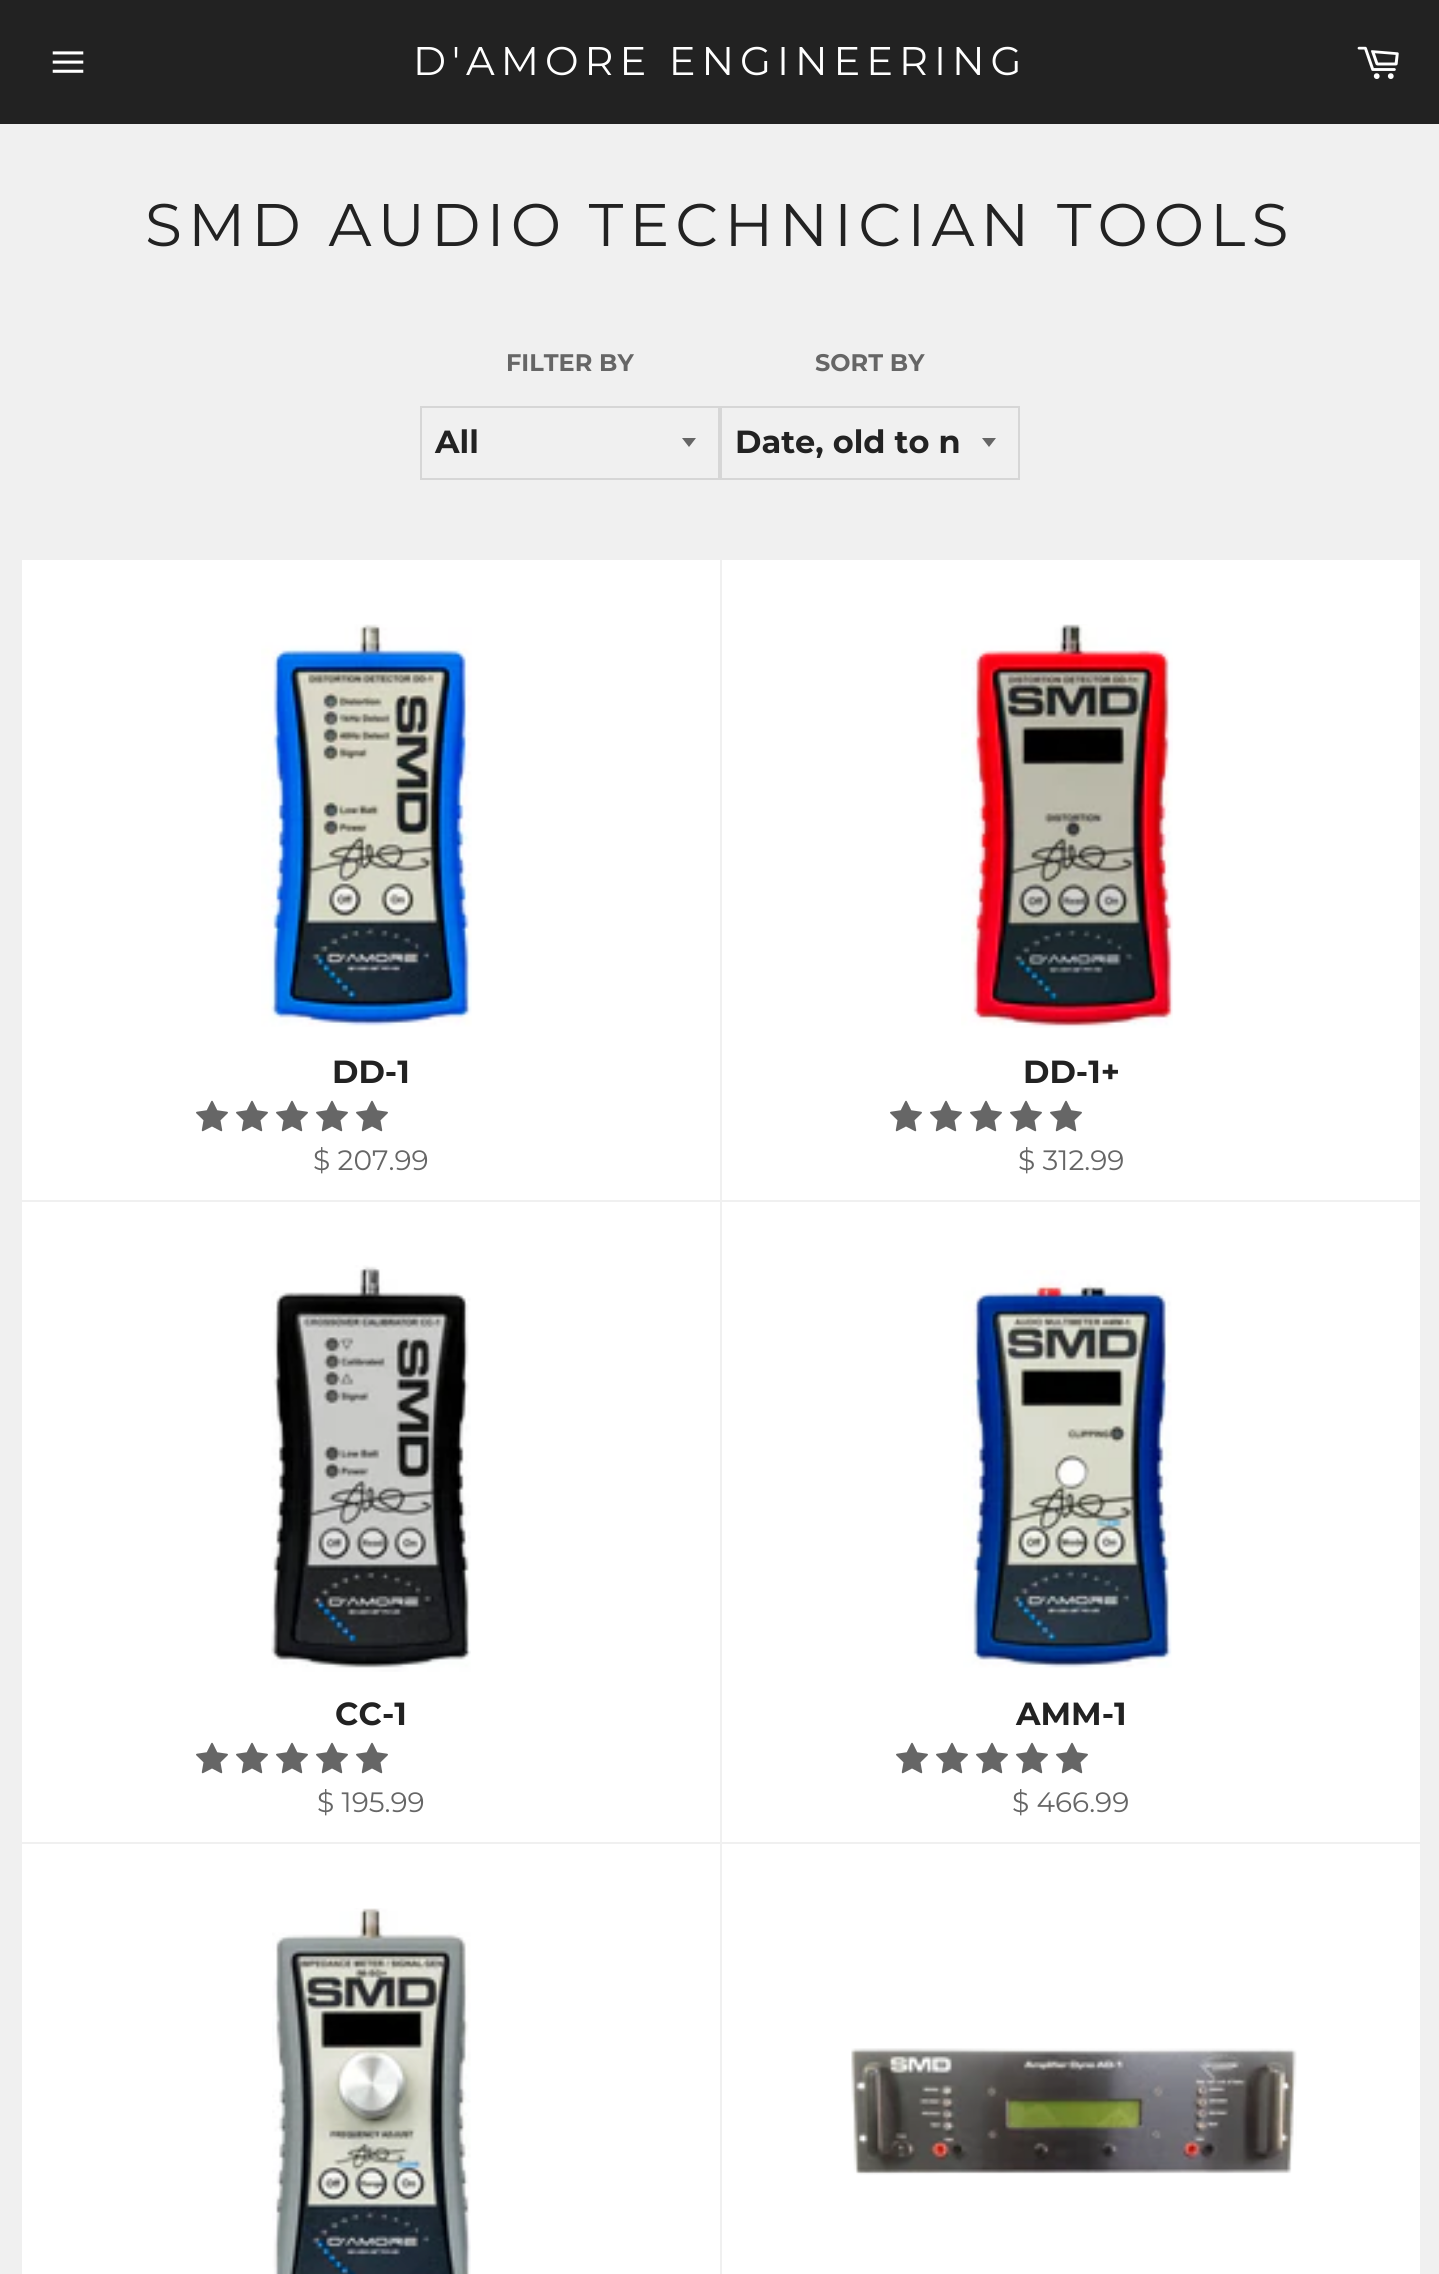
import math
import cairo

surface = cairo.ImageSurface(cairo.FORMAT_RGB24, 1439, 2274)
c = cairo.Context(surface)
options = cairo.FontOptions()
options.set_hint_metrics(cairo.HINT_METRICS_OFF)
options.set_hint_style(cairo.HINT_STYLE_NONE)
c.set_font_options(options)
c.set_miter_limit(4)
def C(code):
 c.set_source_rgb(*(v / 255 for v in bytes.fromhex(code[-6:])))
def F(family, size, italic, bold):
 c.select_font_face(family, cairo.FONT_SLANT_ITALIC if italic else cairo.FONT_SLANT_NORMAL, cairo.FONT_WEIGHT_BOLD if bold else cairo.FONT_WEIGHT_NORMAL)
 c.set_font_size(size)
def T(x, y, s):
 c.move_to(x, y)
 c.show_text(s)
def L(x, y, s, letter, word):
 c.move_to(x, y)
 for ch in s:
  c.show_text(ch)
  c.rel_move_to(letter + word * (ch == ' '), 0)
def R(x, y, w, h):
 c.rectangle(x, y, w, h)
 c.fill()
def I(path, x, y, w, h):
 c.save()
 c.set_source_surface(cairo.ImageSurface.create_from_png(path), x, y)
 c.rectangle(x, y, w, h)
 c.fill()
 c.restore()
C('f0f0f0')
c.paint()
C('222222')
R(0,0,1439,124)
I('1.png',52,51,32,22)
F('Montserrat',40,0,0)
C('ffffff')
L(413,75,'D\'AMORE ENGINEERING',6,0)
I('2.png',1357,46,42,33)
F('Montserrat',60,0,0)
C('222222')
L(145,246,'SMD AUDIO TECHNICIAN TOOLS',6,0)
F('Montserrat',24,0,1)
C('666666')
T(506,371,'FILTER BY')
c.new_path()
c.move_to(682,438)
c.line_to(689,447)
c.line_to(696,438)
c.close_path()
c.fill()
c.rectangle(421,407,298,72)
C('d6d6d6')
c.stroke()
F('Montserrat',32,0,1)
C('222222')
T(435,453,'All')
F('Montserrat',24,0,1)
C('666666')
T(815,371,'SORT BY')
c.new_path()
c.move_to(982,438)
c.line_to(989,447)
c.line_to(996,438)
c.close_path()
c.fill()
c.rectangle(721,407,298,72)
C('d6d6d6')
c.stroke()
F('Montserrat',32,0,1)
C('222222')
T(735,453,'Date, old to n')
C('ffffff')
R(22,560,698,640)
I('3.png',261,624,211,403)
C('222222')
T(332,1083,'DD-1')
I('4.png',196,1100,32,32)
I('4.png',236,1100,32,32)
I('4.png',276,1100,32,32)
I('4.png',316,1100,32,32)
I('4.png',356,1100,32,32)
F('Montserrat',28,0,0)
C('666666')
T(313,1170,'$ 207.99')
C('ffffff')
R(722,560,698,640)
I('5.png',961,624,212,404)
F('Montserrat',32,0,1)
C('222222')
T(1023,1083,'DD-1+')
I('4.png',890,1100,32,32)
I('4.png',930,1100,32,32)
I('4.png',970,1100,32,32)
I('4.png',1010,1100,32,32)
I('4.png',1050,1100,32,32)
F('Montserrat',28,0,0)
C('666666')
T(1018,1170,'$ 312.99')
C('ffffff')
R(22,1202,698,640)
I('6.png',271,1265,200,407)
F('Montserrat',32,0,1)
C('222222')
T(335,1725,'CC-1')
I('4.png',196,1742,32,32)
I('4.png',236,1742,32,32)
I('4.png',276,1742,32,32)
I('4.png',316,1742,32,32)
I('4.png',356,1742,32,32)
F('Montserrat',28,0,0)
C('666666')
T(317,1812,'$ 195.99')
C('ffffff')
R(722,1202,698,640)
I('7.png',963,1270,209,398)
F('Montserrat',32,0,1)
C('222222')
T(1016,1725,'AMM-1')
I('4.png',896,1742,32,32)
I('4.png',936,1742,32,32)
I('4.png',976,1742,32,32)
I('4.png',1016,1742,32,32)
I('4.png',1056,1742,32,32)
F('Montserrat',28,0,0)
C('666666')
T(1012,1812,'$ 466.99')
C('ffffff')
R(22,1844,698,430)
I('8.png',272,1908,199,366)
R(722,1844,698,430)
I('9.png',851,2048,446,127)
surface.write_to_png('o.png')
